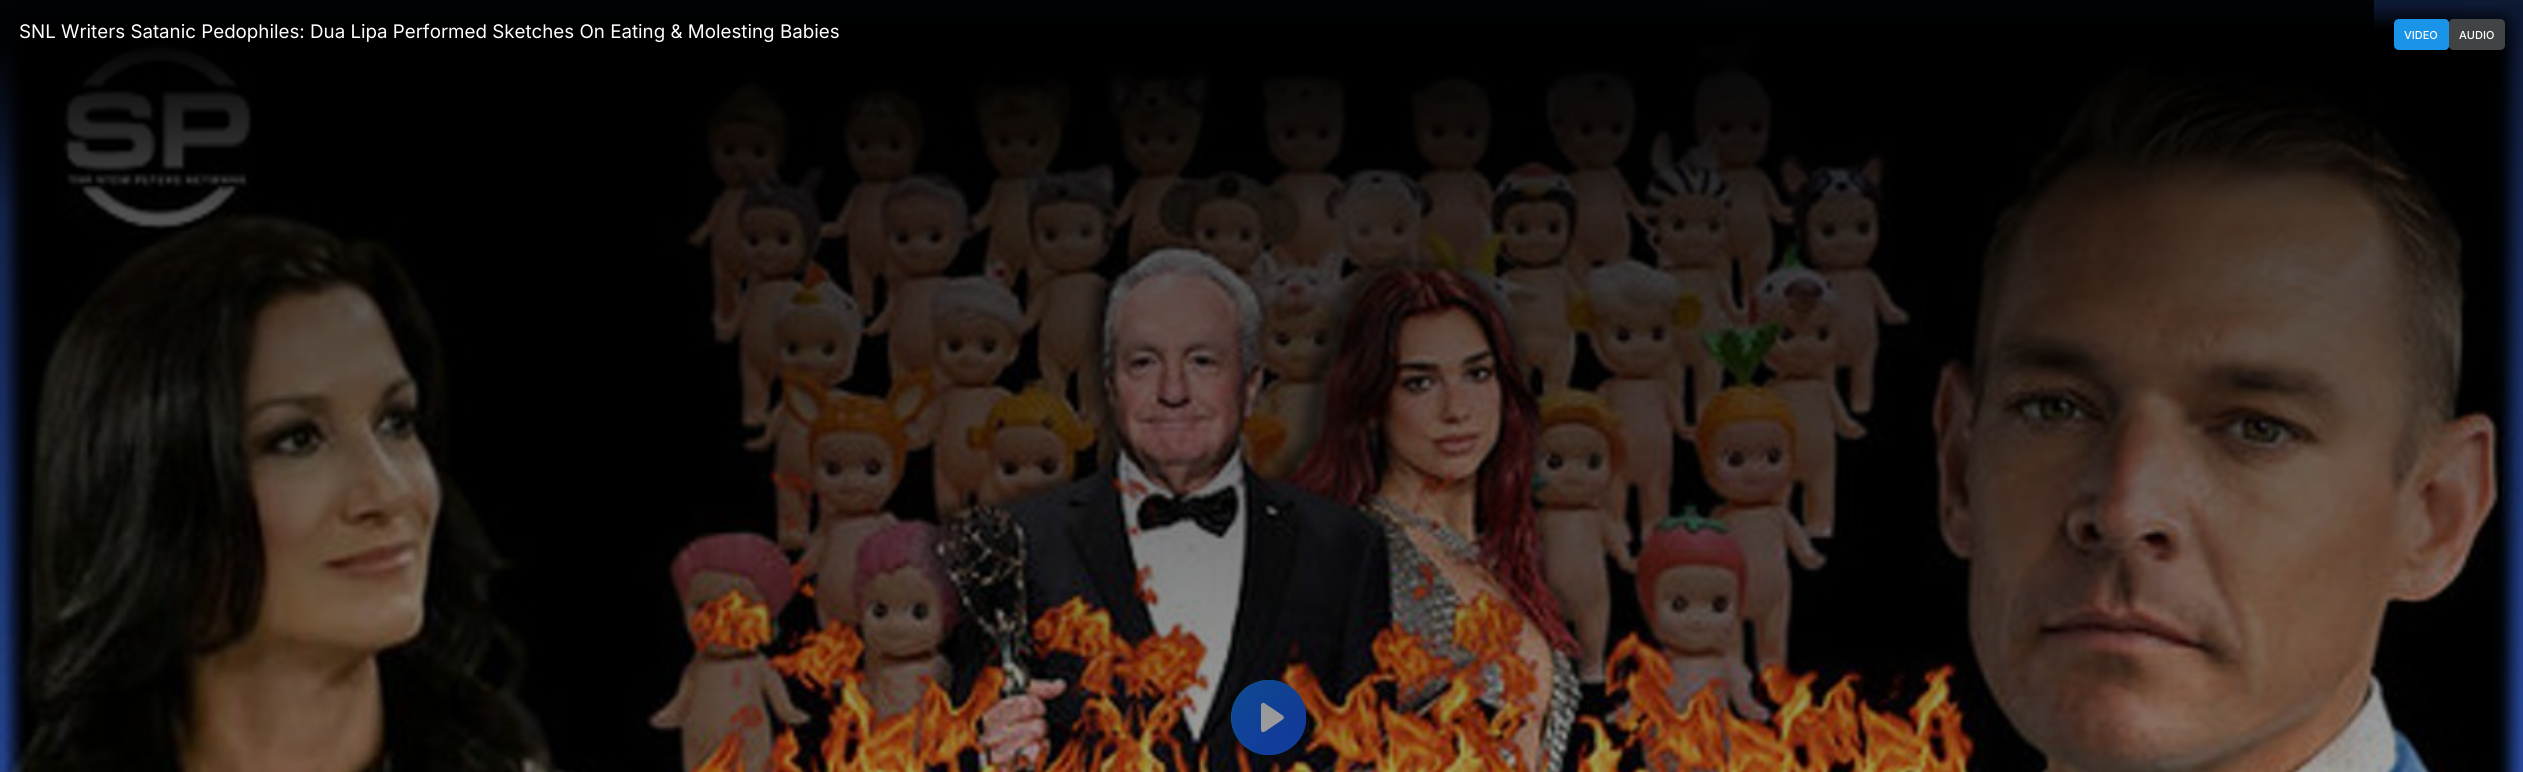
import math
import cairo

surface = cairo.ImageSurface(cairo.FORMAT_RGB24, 2523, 772)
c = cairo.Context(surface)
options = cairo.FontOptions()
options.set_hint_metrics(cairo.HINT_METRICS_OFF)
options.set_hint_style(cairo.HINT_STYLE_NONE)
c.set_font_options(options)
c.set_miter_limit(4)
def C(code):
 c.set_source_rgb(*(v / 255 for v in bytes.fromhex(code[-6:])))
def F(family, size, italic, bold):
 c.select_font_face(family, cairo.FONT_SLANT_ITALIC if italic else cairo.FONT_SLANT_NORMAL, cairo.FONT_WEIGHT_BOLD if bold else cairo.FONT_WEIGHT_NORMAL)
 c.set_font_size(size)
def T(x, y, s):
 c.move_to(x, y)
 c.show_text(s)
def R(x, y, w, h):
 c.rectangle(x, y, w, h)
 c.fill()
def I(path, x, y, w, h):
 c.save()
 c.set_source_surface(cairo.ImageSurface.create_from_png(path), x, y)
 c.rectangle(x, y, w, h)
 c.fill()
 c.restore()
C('ffffff')
c.paint()
I('1.png',0,0,2523,772)
C('01aef0')
c.arc(1268.5,717.5,37.5,0,2 * math.pi)
c.fill()
c.save()
c.rectangle(1231,680,75,75)
c.clip()
gradient = cairo.LinearGradient(1237,679,1282,733)
gradient.add_color_stop_rgba(0,0.102,0.494,0.98,1)
gradient.add_color_stop_rgba(1,0.11,0.38,0.976,1)
c.set_source(gradient)
c.arc(1269,717.5,37.5,0,2 * math.pi)
c.fill()
c.restore()
C('ffffff')
c.new_path()
c.move_to(1265,731.5)
c.curve_to(1263,733,1261,732,1261,729.5)
c.line_to(1261,705.5)
c.curve_to(1261,703,1263,702,1265,703.5)
c.line_to(1282,715)
c.curve_to(1284.5,716.5,1284.5,718.5,1282,720)
c.close_path()
c.fill()
gradient = cairo.LinearGradient(1262,0,1262,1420)
gradient.add_color_stop_rgba(0,0,0,0,.8)
gradient.add_color_stop_rgba(1,0,0,0,0)
c.set_source(gradient)
R(0,0,2523,772)
gradient = cairo.LinearGradient(1187,0,1187,213)
gradient.add_color_stop_rgba(.2,0,0,0,.9)
gradient.add_color_stop_rgba(1,0,0,0,0)
c.set_source(gradient)
R(0,0,2374,207)
F('Inter',18.75,0,0)
C('ffffff')
T(19,38,'SNL Writers Satanic Pedophiles: Dua Lipa Performed Sketches On Eating & Molesting Babies')
C('1994e8')
c.new_path()
c.move_to(2399,19)
c.line_to(2445,19)
c.curve_to(2447,19,2449,21,2449,23)
c.line_to(2449,46)
c.curve_to(2449,48,2447,50,2445,50)
c.line_to(2399,50)
c.curve_to(2396,50,2394,48,2394,45)
c.line_to(2394,24)
c.curve_to(2394,21,2396,19,2399,19)
c.close_path()
c.fill()
F('Inter Medium',11,0,0)
C('ffffff')
T(2404,39,'VIDEO')
C('424345')
c.new_path()
c.move_to(2453,19)
c.line_to(2500,19)
c.curve_to(2503,19,2505,21,2505,24)
c.line_to(2505,45)
c.curve_to(2505,48,2503,50,2500,50)
c.line_to(2453,50)
c.curve_to(2451,50,2449,48,2449,46)
c.line_to(2449,23)
c.curve_to(2449,21,2451,19,2453,19)
c.close_path()
c.fill()
C('ffffff')
T(2459,39,'AUDIO')
surface.write_to_png('o.png')
